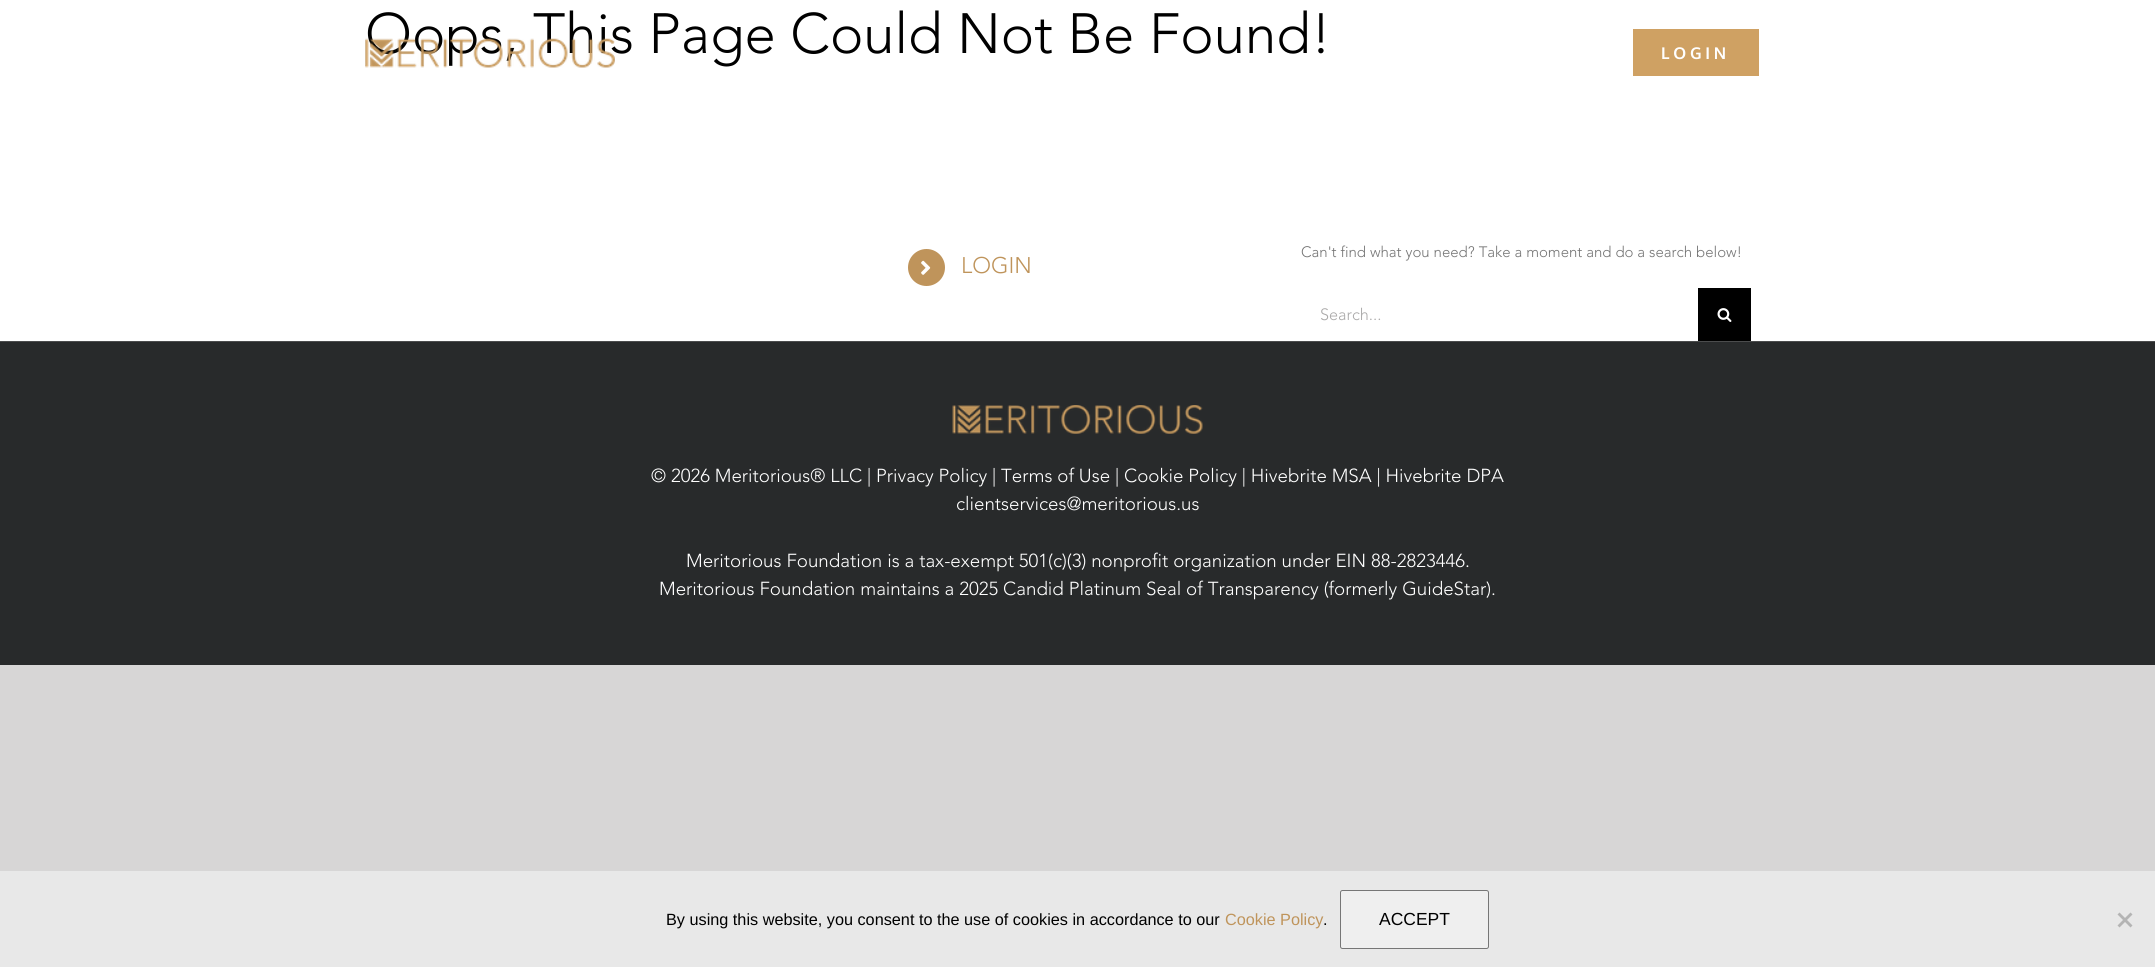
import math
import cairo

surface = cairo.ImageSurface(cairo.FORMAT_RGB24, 2155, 967)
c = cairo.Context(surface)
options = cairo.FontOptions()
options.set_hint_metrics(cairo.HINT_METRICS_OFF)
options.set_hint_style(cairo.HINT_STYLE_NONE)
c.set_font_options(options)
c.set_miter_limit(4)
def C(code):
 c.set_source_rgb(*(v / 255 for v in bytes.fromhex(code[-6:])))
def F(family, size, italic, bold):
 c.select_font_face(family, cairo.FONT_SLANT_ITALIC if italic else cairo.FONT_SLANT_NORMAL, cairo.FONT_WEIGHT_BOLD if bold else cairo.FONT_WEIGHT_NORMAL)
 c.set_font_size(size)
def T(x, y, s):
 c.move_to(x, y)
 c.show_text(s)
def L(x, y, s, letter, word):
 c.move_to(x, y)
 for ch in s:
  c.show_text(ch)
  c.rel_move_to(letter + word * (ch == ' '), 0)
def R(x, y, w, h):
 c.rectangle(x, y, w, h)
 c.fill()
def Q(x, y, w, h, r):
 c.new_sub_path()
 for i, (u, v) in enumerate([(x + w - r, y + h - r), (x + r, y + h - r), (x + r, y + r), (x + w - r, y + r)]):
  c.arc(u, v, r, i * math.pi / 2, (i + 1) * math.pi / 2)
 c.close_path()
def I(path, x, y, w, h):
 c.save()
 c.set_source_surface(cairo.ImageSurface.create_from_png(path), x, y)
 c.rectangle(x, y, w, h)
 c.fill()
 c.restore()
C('d7d6d6')
c.paint()
C('ffffff')
R(0,0,2155,341)
F('Avenir Light',56.25,0,0)
C('000000')
T(365,53,'Oops, This Page Could Not Be Found!')
C('bf945b')
c.new_path()
c.arc(926.5,267.5,18.5,0,2 * math.pi)
c.fill()
I('1.png',921,260,10,15)
F('Avenir Light',22.5,0,0)
T(961,273,'LOGIN')
F('Avenir Light',15,0,0)
C('747474')
T(1301,257,'Can\'t find what you need? Take a moment and do a search below!')
F('Avenir Light',16.25,0,0)
C('aaa9a9')
T(1320,320,'Search...')
C('000000')
R(1698,288,53,53)
I('2.png',1717,308,15,14)
I('3.png',365,38,250,30)
C('cfa163')
R(1633,29,126,47)
F('Oxygen',16.25,0,1)
C('ffffff')
L(1661,59,'LOGIN',3.75,0)
C('282a2b')
R(0,342,2155,323)
C('4b4c4d')
R(0,341,2155,1)
I('4.png',952,405,251,29)
F('Avenir Light',18.75,0,0)
C('ffffff')
T(651,482,'© 2026 Meritorious® LLC | Privacy Policy | Terms of Use | Cookie Policy | Hivebrite MSA | Hivebrite DPA')
T(956,510,'clientservices@meritorious.us')
T(686,567,'Meritorious Foundation is a tax-exempt 501(c)(3) nonprofit organization under EIN 88-2823446.')
T(659,595,'Meritorious Foundation maintains a 2025 Candid Platinum Seal of Transparency (formerly GuideStar).')
C('e8e8e8')
R(0,871,2155,96)
F('Liberation Sans',16.25,0,0)
C('000000')
T(666,925,'By using this website, you consent to the use of cookies in accordance to our')
C('bf945b')
T(1225,925,'Cookie Policy')
C('000000')
T(1323,925,'.')
C('efefef')
Q(1340.5,890.5,148,58,2)
c.fill_preserve()
C('767676')
c.set_line_width(1)
c.stroke()
F('Liberation Sans',17.5,0,0)
C('000000')
T(1379,925,'ACCEPT')
C('b4b4b4')
c.new_path()
c.move_to(2130.5,912.5)
c.line_to(2132.5,914.5)
c.line_to(2119.5,927.5)
c.line_to(2117.5,925.5)
c.close_path()
c.fill()
c.new_path()
c.move_to(2117.5,914.5)
c.line_to(2119.5,912.5)
c.line_to(2132.5,925.5)
c.line_to(2130.5,927.5)
c.close_path()
c.fill()
surface.write_to_png('o.png')
